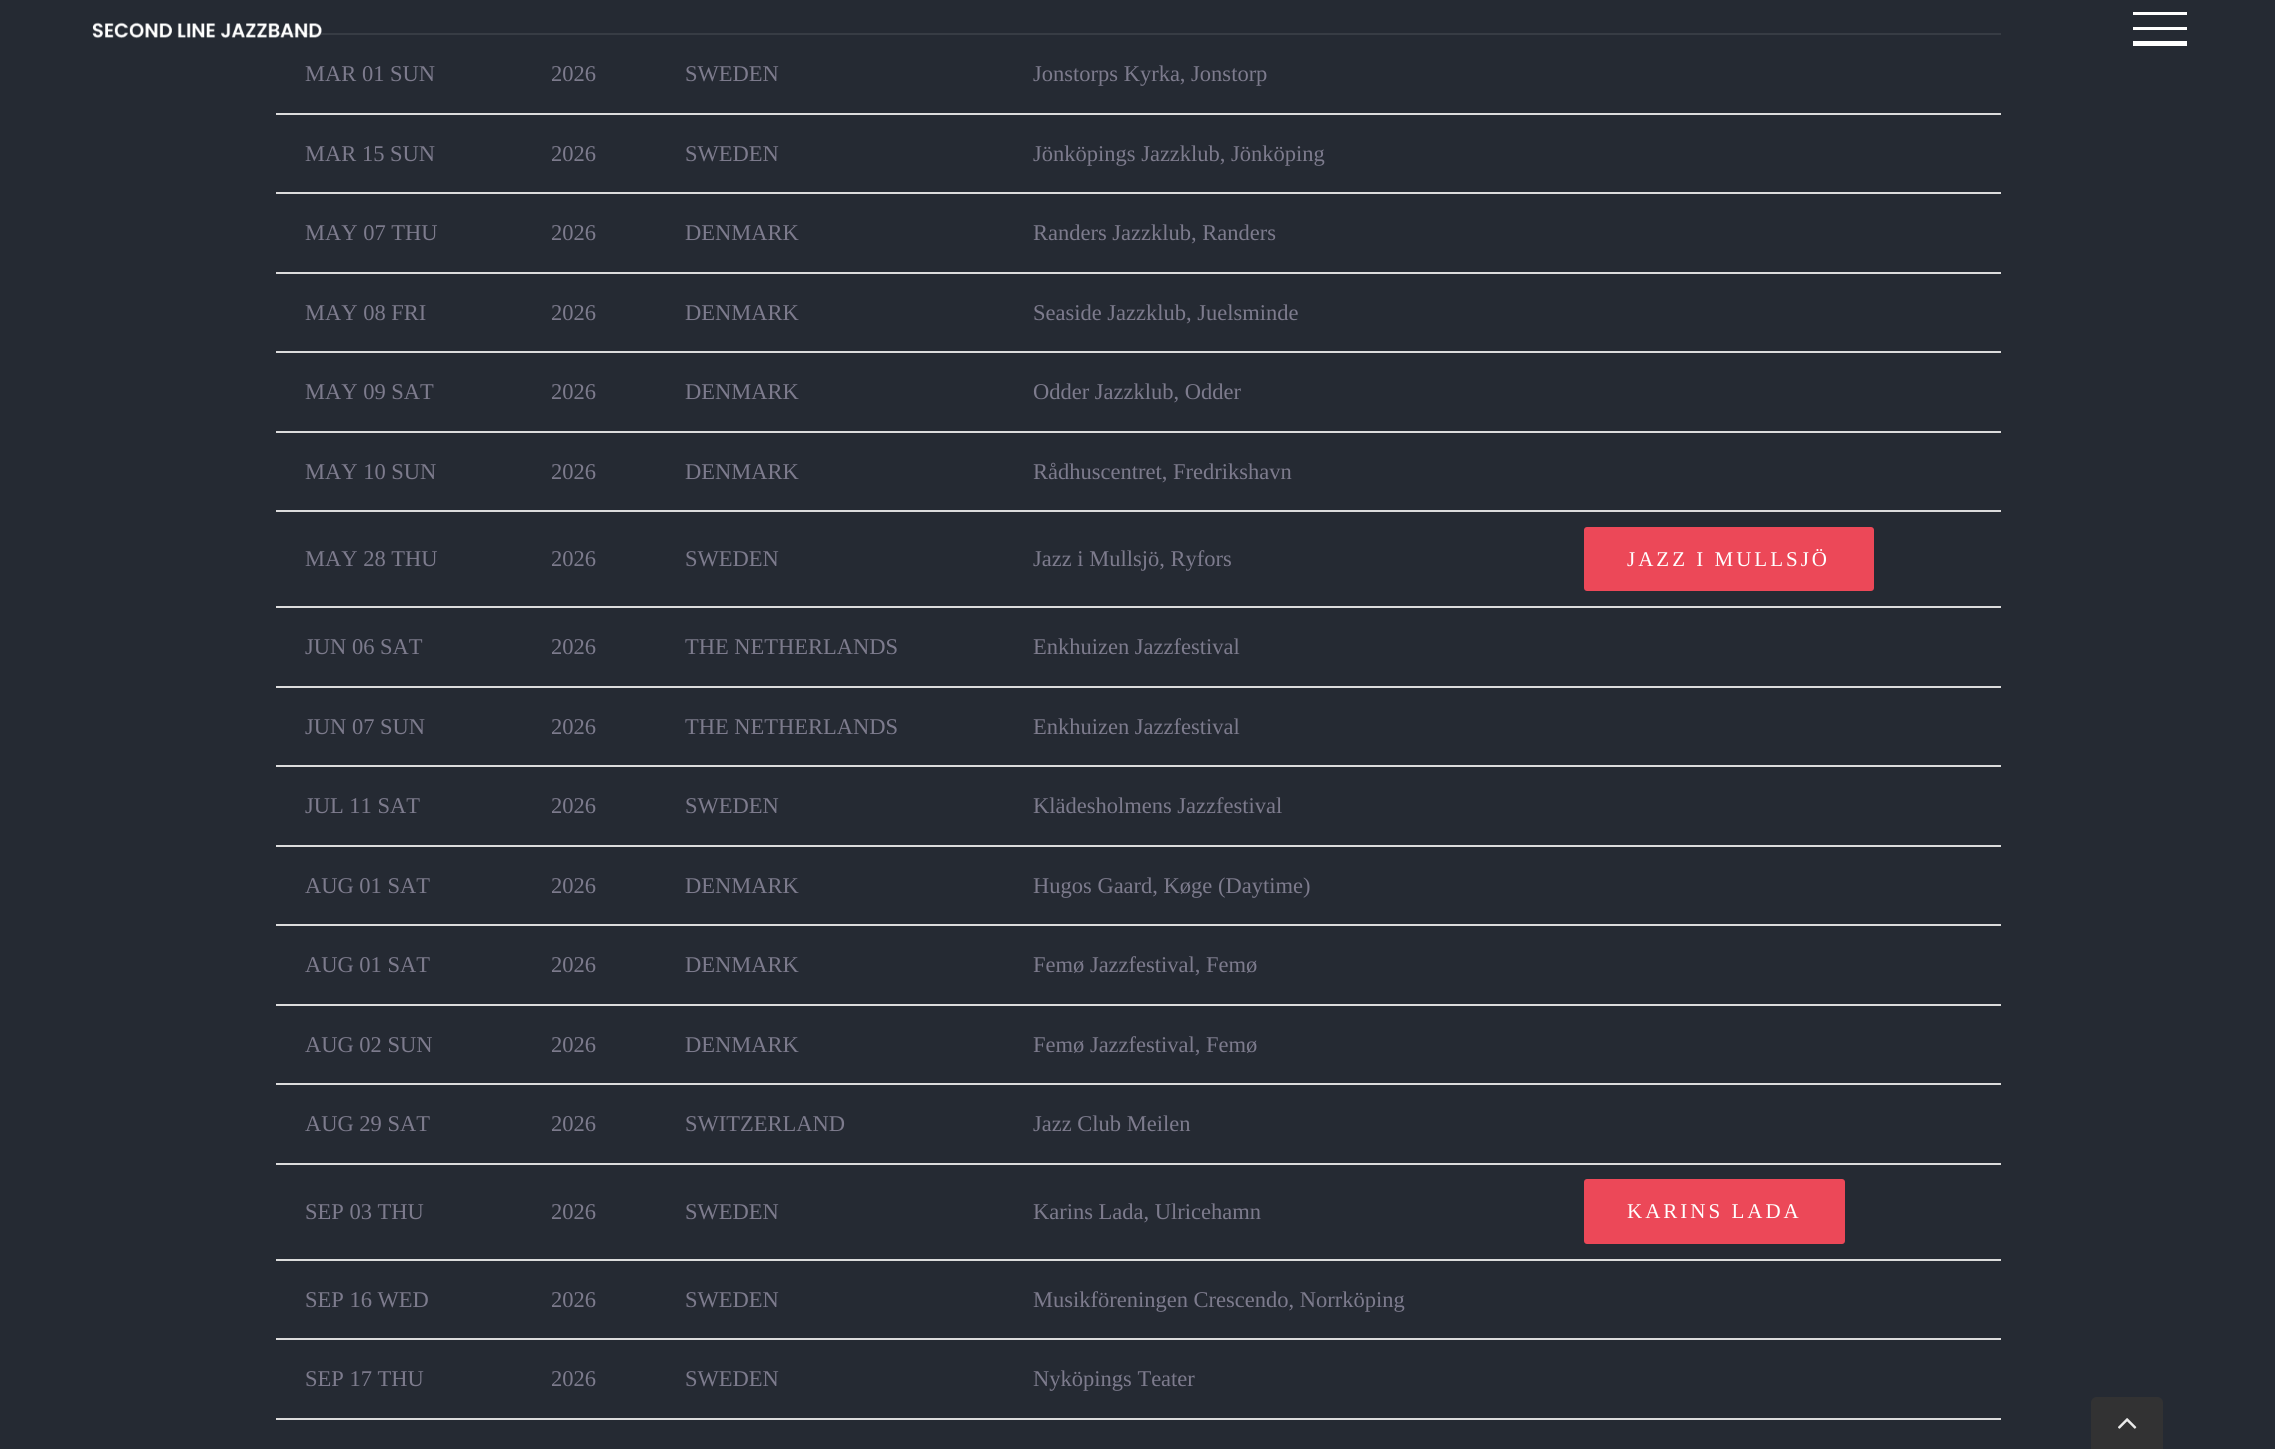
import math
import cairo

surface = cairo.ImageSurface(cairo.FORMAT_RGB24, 2275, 1449)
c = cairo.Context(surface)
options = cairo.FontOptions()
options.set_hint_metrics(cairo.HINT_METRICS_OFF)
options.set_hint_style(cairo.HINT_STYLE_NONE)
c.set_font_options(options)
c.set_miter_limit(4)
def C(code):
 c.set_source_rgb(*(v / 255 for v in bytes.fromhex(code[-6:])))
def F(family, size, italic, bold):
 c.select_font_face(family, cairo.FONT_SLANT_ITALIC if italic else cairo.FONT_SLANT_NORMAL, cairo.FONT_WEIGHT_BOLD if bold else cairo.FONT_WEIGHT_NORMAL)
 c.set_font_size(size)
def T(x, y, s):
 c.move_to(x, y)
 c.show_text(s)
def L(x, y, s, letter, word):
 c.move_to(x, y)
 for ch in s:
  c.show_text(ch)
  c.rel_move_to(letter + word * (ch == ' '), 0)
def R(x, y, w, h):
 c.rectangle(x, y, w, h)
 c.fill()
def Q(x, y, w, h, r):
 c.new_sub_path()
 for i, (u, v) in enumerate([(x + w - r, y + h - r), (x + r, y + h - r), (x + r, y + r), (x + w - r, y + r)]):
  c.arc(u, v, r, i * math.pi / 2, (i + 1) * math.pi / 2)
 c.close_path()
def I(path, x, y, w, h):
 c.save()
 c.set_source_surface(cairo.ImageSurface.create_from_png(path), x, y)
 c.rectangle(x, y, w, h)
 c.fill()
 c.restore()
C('252a33')
c.paint()
C('373c44')
R(276,33,1725,2)
I('1.png',92,22,230,17)
C('ffffff')
R(2133,12,54,3)
R(2133,27,54,3)
R(2133,41,54,5)
F('Liberation Serif',22.5,0,0)
C('7d7b8d')
T(305,81,'MAR 01 SUN')
T(551,81,'2026')
T(685,81,'SWEDEN')
T(1033,81,'Jonstorps Kyrka, Jonstorp')
C('dcdcdc')
R(276,113,1725,2)
C('7d7b8d')
T(305,161,'MAR 15 SUN')
T(551,161,'2026')
T(685,161,'SWEDEN')
T(1033,161,'Jönköpings Jazzklub, Jönköping')
C('dcdcdc')
R(276,192,1725,2)
C('7d7b8d')
T(305,240,'MAY 07 THU')
T(551,240,'2026')
T(685,240,'DENMARK')
T(1033,240,'Randers Jazzklub, Randers')
C('dcdcdc')
R(276,272,1725,2)
C('7d7b8d')
T(305,320,'MAY 08 FRI')
T(551,320,'2026')
T(685,320,'DENMARK')
T(1033,320,'Seaside Jazzklub, Juelsminde')
C('dcdcdc')
R(276,351,1725,2)
C('7d7b8d')
T(305,399,'MAY 09 SAT')
T(551,399,'2026')
T(685,399,'DENMARK')
T(1033,399,'Odder Jazzklub, Odder')
C('dcdcdc')
R(276,431,1725,2)
C('7d7b8d')
T(305,479,'MAY 10 SUN')
T(551,479,'2026')
T(685,479,'DENMARK')
T(1033,479,'Rådhuscentret, Fredrikshavn')
C('dcdcdc')
R(276,510,1725,2)
C('7d7b8d')
T(305,566,'MAY 28 THU')
T(551,566,'2026')
T(685,566,'SWEDEN')
T(1033,566,'Jazz i Mullsjö, Ryfors')
C('dcdcdc')
R(276,606,1725,2)
C('ec4858')
Q(1584,527,290,64,3)
c.fill()
F('Liberation Serif',21,0,0)
C('ffffff')
L(1627,566,'JAZZ I MULLSJÖ',3,0)
F('Liberation Serif',22.5,0,0)
C('7d7b8d')
T(305,654,'JUN 06 SAT')
T(551,654,'2026')
T(685,654,'THE NETHERLANDS')
T(1033,654,'Enkhuizen Jazzfestival')
C('dcdcdc')
R(276,686,1725,2)
C('7d7b8d')
T(305,734,'JUN 07 SUN')
T(551,734,'2026')
T(685,734,'THE NETHERLANDS')
T(1033,734,'Enkhuizen Jazzfestival')
C('dcdcdc')
R(276,765,1725,2)
C('7d7b8d')
T(305,813,'JUL 11 SAT')
T(551,813,'2026')
T(685,813,'SWEDEN')
T(1033,813,'Klädesholmens Jazzfestival')
C('dcdcdc')
R(276,845,1725,2)
C('7d7b8d')
T(305,893,'AUG 01 SAT')
T(551,893,'2026')
T(685,893,'DENMARK')
T(1033,893,'Hugos Gaard, Køge (Daytime)')
C('dcdcdc')
R(276,924,1725,2)
C('7d7b8d')
T(305,972,'AUG 01 SAT')
T(551,972,'2026')
T(685,972,'DENMARK')
T(1033,972,'Femø Jazzfestival, Femø')
C('dcdcdc')
R(276,1004,1725,2)
C('7d7b8d')
T(305,1052,'AUG 02 SUN')
T(551,1052,'2026')
T(685,1052,'DENMARK')
T(1033,1052,'Femø Jazzfestival, Femø')
C('dcdcdc')
R(276,1083,1725,2)
C('7d7b8d')
T(305,1131,'AUG 29 SAT')
T(551,1131,'2026')
T(685,1131,'SWITZERLAND')
T(1033,1131,'Jazz Club Meilen')
C('dcdcdc')
R(276,1163,1725,2)
C('7d7b8d')
T(305,1219,'SEP 03 THU')
T(551,1219,'2026')
T(685,1219,'SWEDEN')
T(1033,1219,'Karins Lada, Ulricehamn')
C('dcdcdc')
R(276,1259,1725,2)
C('ec4858')
Q(1584,1179,261,65,3)
c.fill()
F('Liberation Serif',21,0,0)
C('ffffff')
L(1627,1218,'KARINS LADA',3,0)
F('Liberation Serif',22.5,0,0)
C('7d7b8d')
T(305,1307,'SEP 16 WED')
T(551,1307,'2026')
T(685,1307,'SWEDEN')
T(1033,1307,'Musikföreningen Crescendo, Norrköping')
C('dcdcdc')
R(276,1338,1725,2)
C('7d7b8d')
T(305,1386,'SEP 17 THU')
T(551,1386,'2026')
T(685,1386,'SWEDEN')
T(1033,1386,'Nyköpings Teater')
C('dcdcdc')
R(276,1418,1725,2)
C('323233')
c.new_path()
c.move_to(2097,1397)
c.line_to(2157,1397)
c.curve_to(2160.5,1397,2163,1399.5,2163,1403)
c.line_to(2163,1449)
c.line_to(2091,1449)
c.line_to(2091,1403)
c.curve_to(2091,1399.5,2093.5,1397,2097,1397)
c.close_path()
c.fill()
I('2.png',2118,1418,19,11)
surface.write_to_png('o.png')
